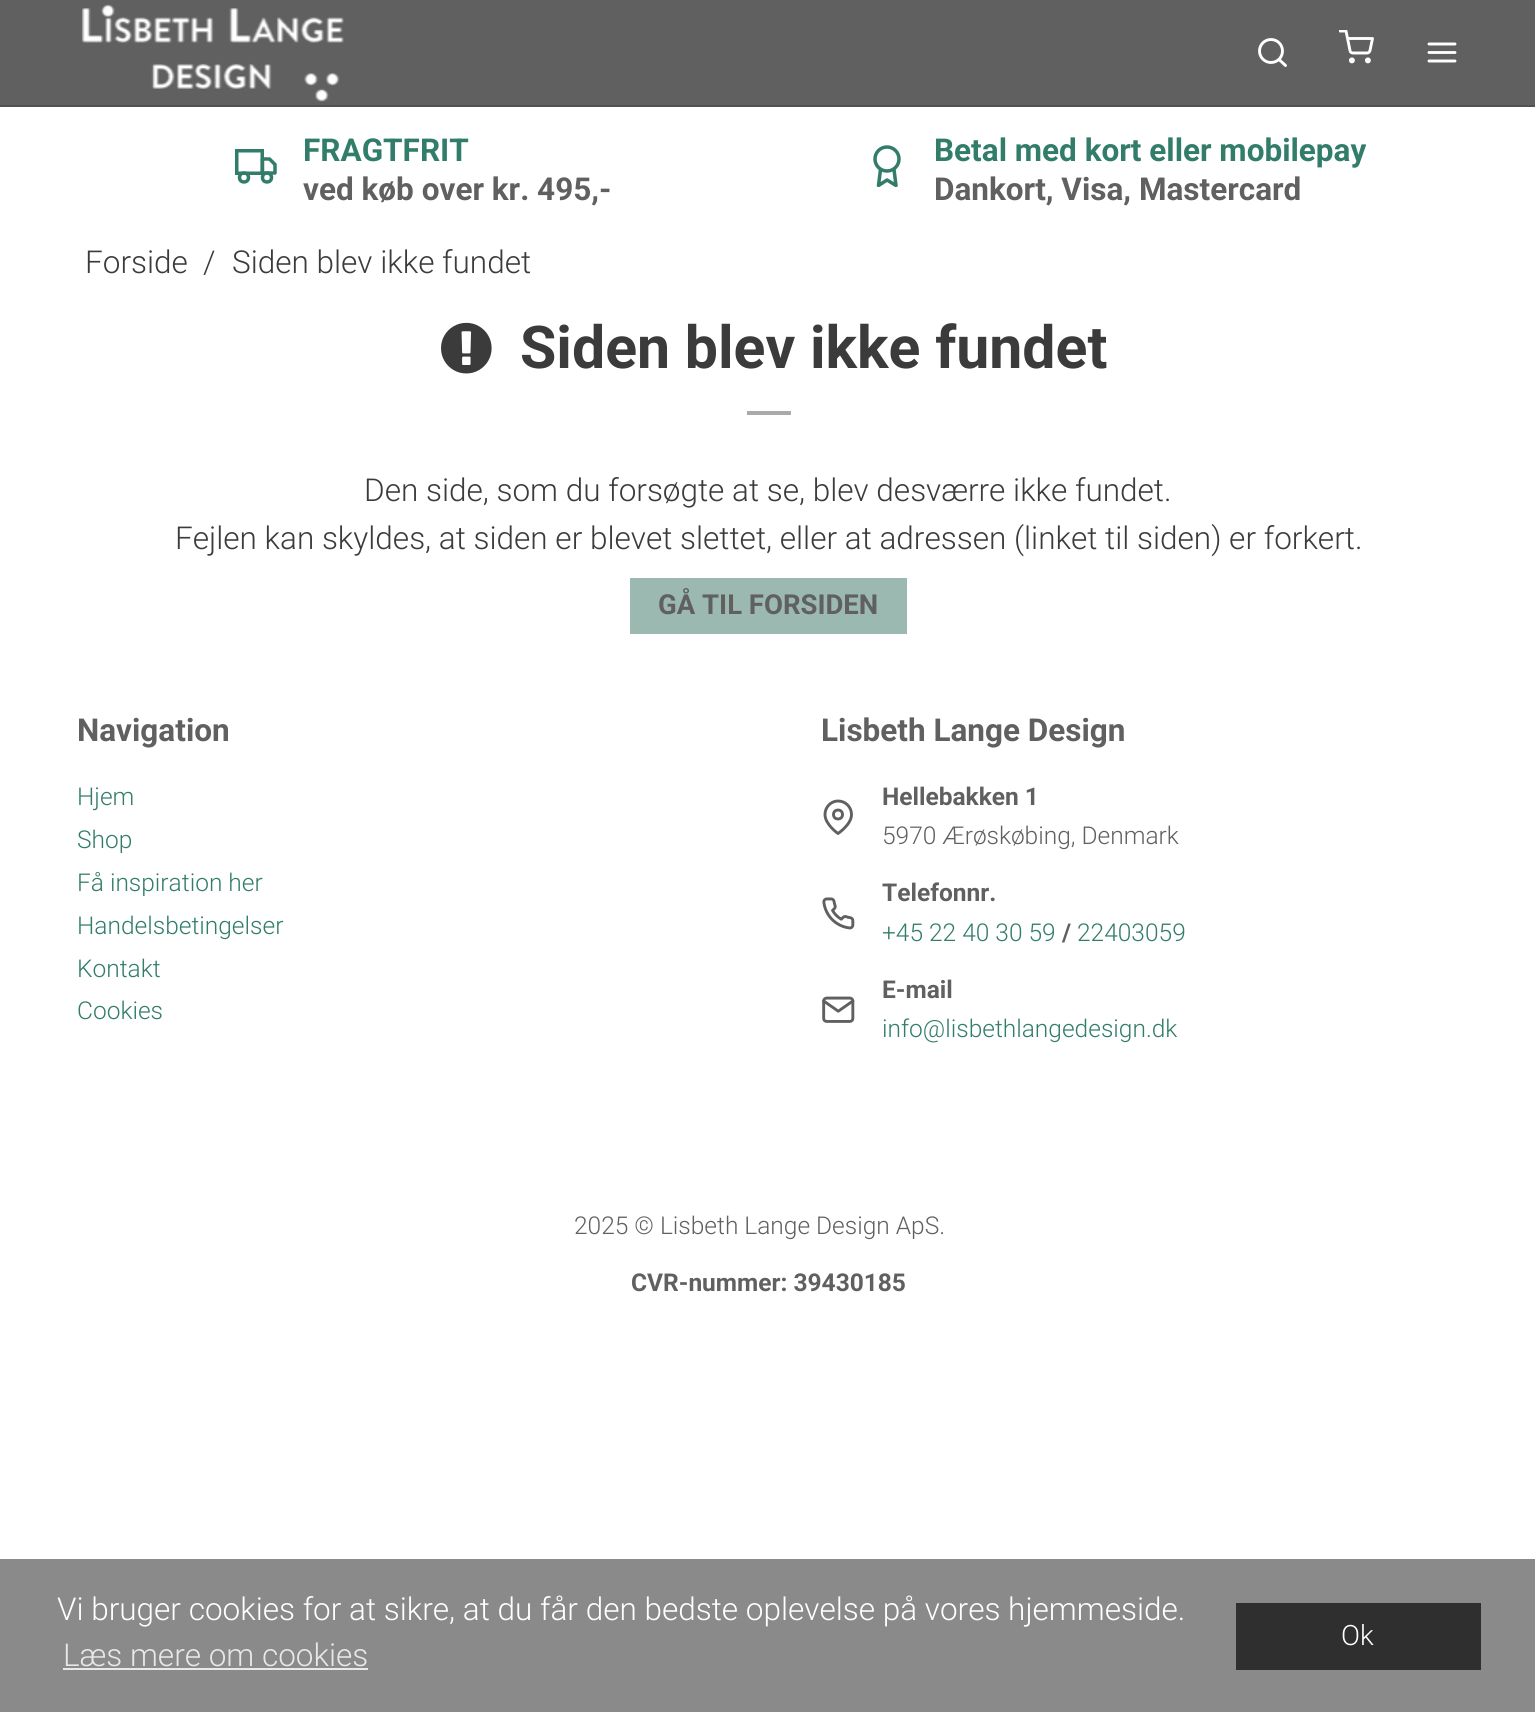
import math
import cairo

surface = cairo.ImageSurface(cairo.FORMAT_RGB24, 1535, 1712)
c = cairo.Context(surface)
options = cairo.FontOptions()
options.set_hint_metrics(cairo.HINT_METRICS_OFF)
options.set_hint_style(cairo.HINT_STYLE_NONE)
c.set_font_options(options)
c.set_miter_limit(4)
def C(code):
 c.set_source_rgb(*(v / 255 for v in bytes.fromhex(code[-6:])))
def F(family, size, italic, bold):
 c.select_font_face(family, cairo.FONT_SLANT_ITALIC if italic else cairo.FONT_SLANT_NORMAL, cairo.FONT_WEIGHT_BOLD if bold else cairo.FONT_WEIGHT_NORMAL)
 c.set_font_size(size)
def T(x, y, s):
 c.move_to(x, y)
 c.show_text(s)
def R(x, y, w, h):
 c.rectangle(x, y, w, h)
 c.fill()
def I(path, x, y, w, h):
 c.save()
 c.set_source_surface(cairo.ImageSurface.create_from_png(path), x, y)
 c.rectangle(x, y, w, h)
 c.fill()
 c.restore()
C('ffffff')
c.paint()
C('606060')
R(0,0,1535,105)
C('525252')
R(0,105,1535,2)
I('1.png',81,4,263,98)
c.arc(1271,51,11.5,0,2 * math.pi)
C('ffffff')
c.set_line_width(2.9)
c.stroke()
c.new_path()
c.move_to(1285.5,65.5)
c.line_to(1279,59.5)
c.set_line_cap(cairo.LINE_CAP_ROUND)
c.set_line_join(cairo.LINE_JOIN_ROUND)
c.stroke()
c.save()
c.rectangle(1339,30,35,35)
c.clip()
c.new_path()
c.move_to(1340,31)
c.line_to(1346,31)
c.line_to(1350,50.5)
c.curve_to(1350,52,1351.5,53,1353,53)
c.line_to(1367,53)
c.curve_to(1368.5,53,1369.5,52,1370,50.5)
c.line_to(1372.5,38.5)
c.line_to(1347.5,38.5)
c.stroke()
c.restore()
c.arc(1351.9,60.4,1.5,0,2 * math.pi)
c.set_line_cap(cairo.LINE_CAP_BUTT)
c.set_line_join(cairo.LINE_JOIN_MITER)
c.stroke()
c.arc(1367.9,60.4,1.5,0,2 * math.pi)
c.stroke()
c.new_path()
c.move_to(1429,52.5)
c.line_to(1455,52.5)
c.move_to(1429,44)
c.line_to(1455,44)
c.move_to(1429,61)
c.line_to(1455,61)
c.set_line_cap(cairo.LINE_CAP_ROUND)
c.set_line_join(cairo.LINE_JOIN_ROUND)
c.stroke()
c.rectangle(236.75,150.75,25.5,22.5)
C('327d6a')
c.set_line_width(3.5)
c.set_line_cap(cairo.LINE_CAP_BUTT)
c.set_line_join(cairo.LINE_JOIN_MITER)
c.stroke()
c.new_path()
c.move_to(262.5,159)
c.line_to(269.5,159)
c.line_to(275,164.5)
c.line_to(275,173)
c.line_to(262.5,173)
c.close_path()
c.set_line_cap(cairo.LINE_CAP_ROUND)
c.set_line_join(cairo.LINE_JOIN_ROUND)
c.stroke()
c.arc(244,177.5,4.5,0,2 * math.pi)
c.set_line_cap(cairo.LINE_CAP_BUTT)
c.set_line_join(cairo.LINE_JOIN_MITER)
c.stroke()
c.arc(267,177.5,4.5,0,2 * math.pi)
c.stroke()
F('Roboto',31.5,0,1)
T(303,161,'FRAGTFRIT')
C('606060')
T(303,200,'ved køb over kr. 495,-')
c.new_path()
c.arc(887,159,12,0,2 * math.pi)
C('327d6a')
c.stroke()
c.save()
c.rectangle(866,145,42,42)
c.clip()
c.new_path()
c.move_to(880.5,169.5)
c.line_to(878.5,185.5)
c.line_to(887,180)
c.line_to(896,185.5)
c.line_to(894,169.5)
c.set_line_cap(cairo.LINE_CAP_ROUND)
c.set_line_join(cairo.LINE_JOIN_ROUND)
c.stroke()
c.restore()
T(934,161,'Betal med kort eller mobilepay')
C('606060')
T(934,200,'Dankort, Visa, Mastercard')
F('Roboto Light',31.5,0,0)
C('3b3b3b')
T(85,273,'Forside')
T(203,273,'/')
T(232,273,'Siden blev ikke fundet')
I('2.png',441,322,51,52)
F('Roboto',59,0,1)
T(520,368,'Siden blev ikke fundet')
C('aaaaaa')
R(747,411,44,4)
F('Roboto Light',31.5,0,0)
C('3b3b3b')
T(364,501,'Den side, som du forsøgte at se, blev desværre ikke fundet.')
T(175,549,'Fejlen kan skyldes, at siden er blevet slettet, eller at adressen (linket til siden) er forkert.')
C('9bb9b1')
R(630,578,277,56)
F('Roboto',27.5,0,1)
C('606060')
T(658,614,'GÅ TIL FORSIDEN')
F('Roboto',31.5,0,1)
T(77,741,'Navigation')
F('Roboto Light',24.5,0,0)
C('327d6a')
T(77,805,'Hjem')
T(77,848,'Shop')
T(77,891,'Få inspiration her')
T(77,934,'Handelsbetingelser')
T(77,977,'Kontakt')
T(77,1019,'Cookies')
F('Roboto',31.5,0,1)
C('606060')
T(821,741,'Lisbeth Lange Design')
c.new_path()
c.move_to(851.5,814.5)
c.curve_to(851.5,824.5,838,833.5,838,833.5)
c.curve_to(838,833.5,825,824.5,825,814.5)
c.curve_to(825,807,831,801,838,801)
c.curve_to(845.5,801,851.5,807,851.5,814.5)
c.close_path()
c.set_line_width(2.9)
c.set_line_cap(cairo.LINE_CAP_ROUND)
c.set_line_join(cairo.LINE_JOIN_ROUND)
c.stroke()
c.arc(838,814.5,4.5,0,2 * math.pi)
c.set_line_cap(cairo.LINE_CAP_BUTT)
c.set_line_join(cairo.LINE_JOIN_MITER)
c.stroke()
F('Roboto',24.5,0,1)
T(882,805,'Hellebakken 1')
F('Roboto Light',24.5,0,0)
T(882,844,'5970 Ærøskøbing, Denmark')
I('3.png',822,897,33,33)
F('Roboto',24.5,0,1)
T(882,901,'Telefonnr.')
F('Roboto Light',24.5,0,0)
C('327d6a')
T(882,941,'+45 22 40 30 59')
F('Roboto',24.5,0,1)
C('606060')
T(1062,941,'/')
F('Roboto Light',24.5,0,0)
C('327d6a')
T(1077,941,'22403059')
I('4.png',822,996,33,27)
F('Roboto',24.5,0,1)
C('606060')
T(882,998,'E-mail')
F('Roboto Light',24.5,0,0)
C('327d6a')
T(882,1037,'info@lisbethlangedesign.dk')
C('606060')
T(574,1234,'2025 © Lisbeth Lange Design ApS.')
F('Roboto',24.5,0,1)
T(631,1291,'CVR-nummer: 39430185')
C('8a8a8a')
R(0,1559,1535,153)
F('Roboto Light',31.5,0,0)
C('ffffff')
T(57,1620,'Vi bruger cookies for at sikre, at du får den bedste oplevelse på vores hjemmeside.')
C('e8e8e8')
T(63,1666,'Læs mere om cookies')
R(63,1668,305,2)
C('2f2f2f')
R(1236,1603,245,67)
F('Roboto Light',28,0,0)
C('ffffff')
T(1341,1645,'Ok')
surface.write_to_png('o.png')
